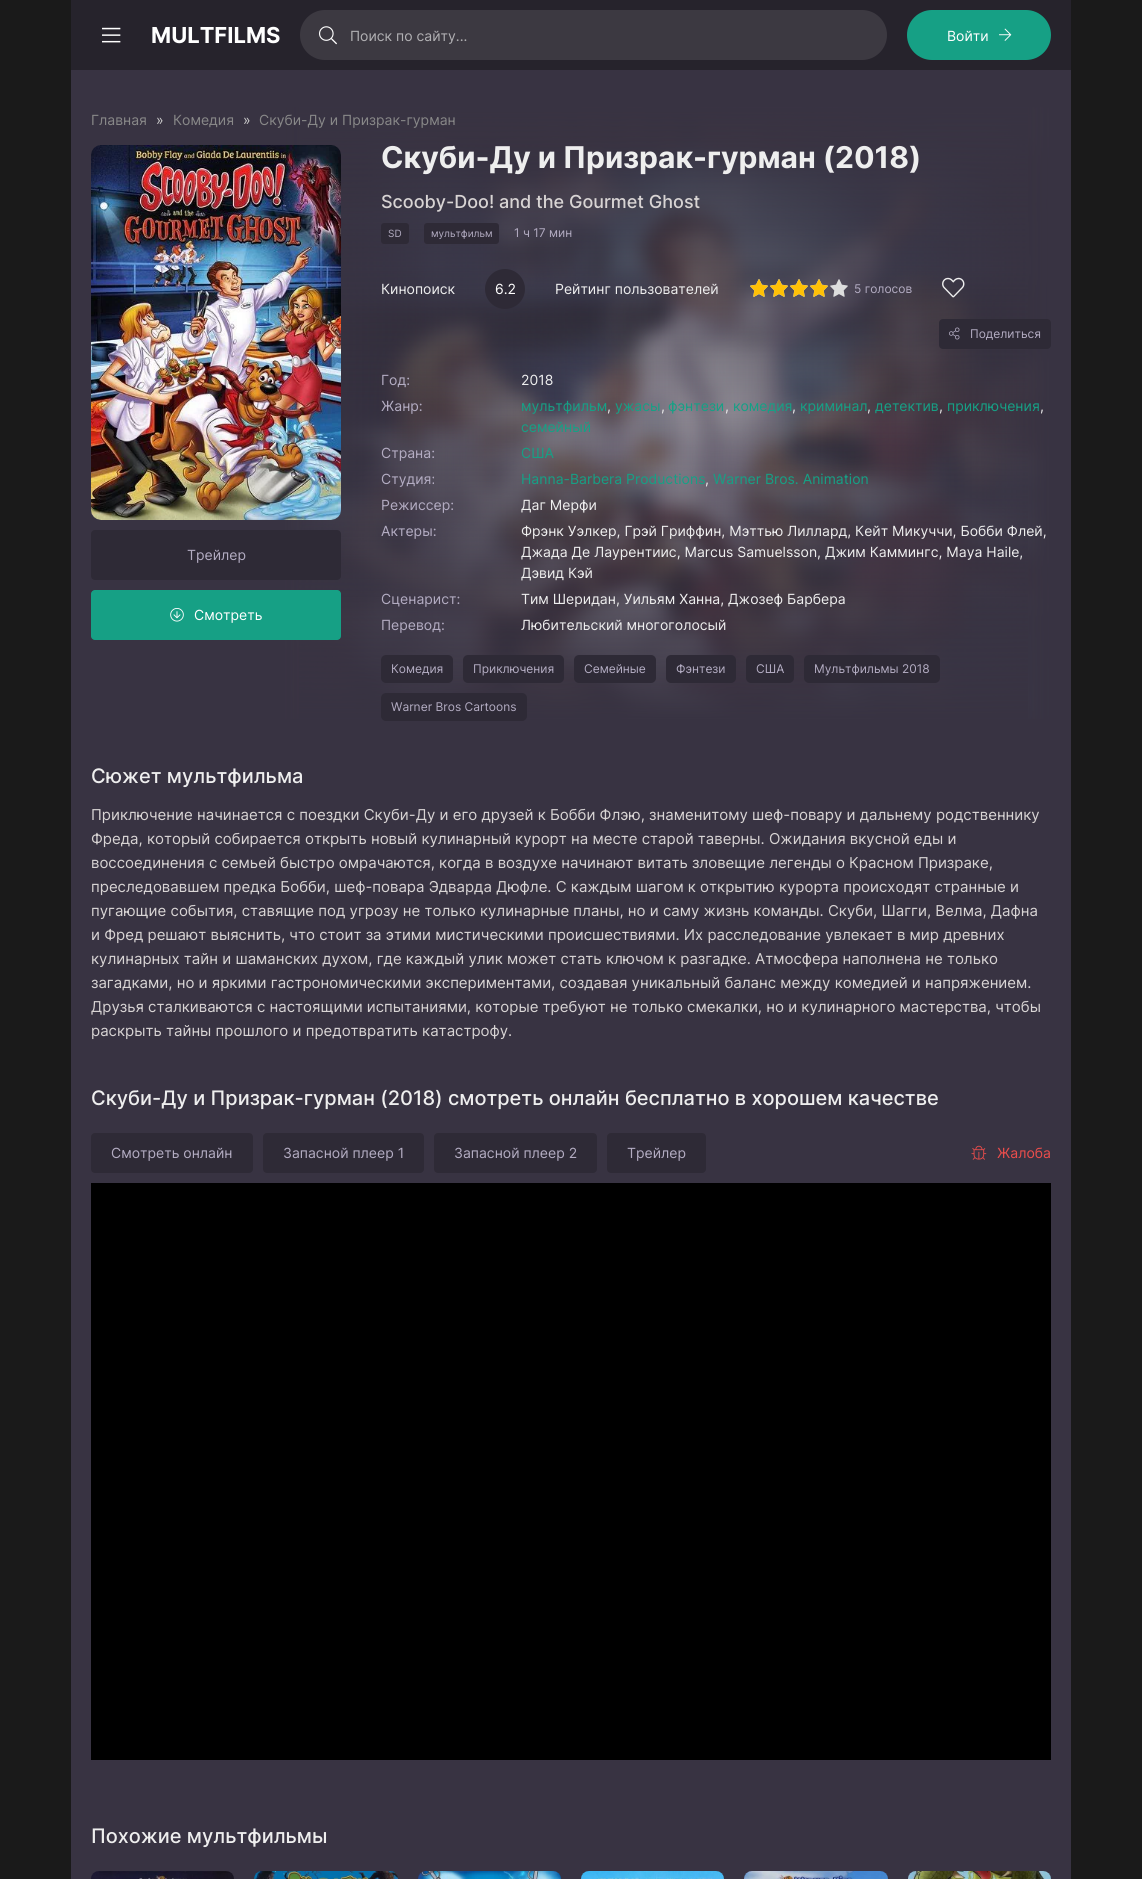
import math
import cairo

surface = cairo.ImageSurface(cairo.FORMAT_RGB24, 1142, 1879)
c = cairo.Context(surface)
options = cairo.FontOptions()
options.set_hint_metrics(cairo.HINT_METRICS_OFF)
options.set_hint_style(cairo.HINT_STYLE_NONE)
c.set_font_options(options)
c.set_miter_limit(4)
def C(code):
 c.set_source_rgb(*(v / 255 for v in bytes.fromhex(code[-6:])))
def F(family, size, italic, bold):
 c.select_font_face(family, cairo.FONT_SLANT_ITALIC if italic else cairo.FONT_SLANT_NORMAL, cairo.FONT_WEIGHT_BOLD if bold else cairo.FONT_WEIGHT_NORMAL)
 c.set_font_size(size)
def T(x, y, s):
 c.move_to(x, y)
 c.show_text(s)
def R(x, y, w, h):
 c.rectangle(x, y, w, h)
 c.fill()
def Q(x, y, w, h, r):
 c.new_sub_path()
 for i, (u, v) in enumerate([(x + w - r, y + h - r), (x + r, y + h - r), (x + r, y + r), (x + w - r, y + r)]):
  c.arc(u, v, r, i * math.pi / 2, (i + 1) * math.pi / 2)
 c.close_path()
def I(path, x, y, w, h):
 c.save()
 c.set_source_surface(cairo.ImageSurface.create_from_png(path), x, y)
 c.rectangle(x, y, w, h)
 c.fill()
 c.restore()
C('1a1a1a')
c.paint()
C('383342')
R(71,70,1000,1809)
C('26232c')
R(71,0,1000,70)
I('1.png',102,27,19,16)
F('Inter',22,0,1)
C('ffffff')
T(151,43,'MULTFILMS')
C('3c3941')
Q(300,10,587,50,25)
c.fill()
I('2.png',319,26,18,19)
F('Inter',14,0,0)
C('b1b0b3')
T(350,41,'Поиск по сайту...')
C('16a085')
Q(907,10,144,50,25)
c.fill()
C('ffffff')
T(947,41,'Войти')
I('3.png',999,28,13,13)
C('888888')
T(91,125,'Главная')
C('cccccc')
T(156,125,'»')
C('888888')
T(173,125,'Комедия')
C('cccccc')
T(243,125,'»')
I('4.png',285,107,764,612)
gradient = cairo.LinearGradient(283,413,1051,413)
gradient.add_color_stop_rgba(0,0.22,0.2,0.259,1)
gradient.add_color_stop_rgba(.5,0.22,0.2,0.259,0)
gradient.add_color_stop_rgba(1,0.22,0.2,0.259,1)
c.set_source(gradient)
R(285,107,764,612)
gradient = cairo.LinearGradient(667,105,667,721)
gradient.add_color_stop_rgba(0,0.22,0.2,0.259,1)
gradient.add_color_stop_rgba(.5,0.22,0.2,0.259,0)
gradient.add_color_stop_rgba(1,0.22,0.2,0.259,1)
c.set_source(gradient)
R(299,107,729,612)
C('888888')
T(259,125,'Скуби-Ду и Призрак-гурман')
F('Inter',30,0,1)
C('eeeeee')
T(381,168,'Скуби-Ду и Призрак-гурман (2018)')
F('Inter Medium',18,0,0)
C('d8d4d4')
T(381,208,'Scooby-Doo! and the Gourmet Ghost')
C('2e2a36')
Q(381,223,28,21,3)
c.fill()
F('Inter',10,0,0)
C('b3acc2')
T(388,237,'SD')
C('2e2a36')
Q(424,223,75,21,3)
c.fill()
C('b3acc2')
T(431,237,'мультфильм')
F('Inter',12,0,0)
T(514,237,'1 ч 17 мин')
I('5.png',91,145,250,375)
C('2e2a36')
Q(91,530,250,50,4)
c.fill()
F('Inter',14,0,0)
C('b3acc2')
T(187,560,'Трейлер')
C('16a085')
Q(91,590,250,50,4)
c.fill()
I('6.png',170,608,14,14)
C('ffffff')
T(194,620,'Смотреть')
C('eeeeee')
T(381,294,'Кинопоиск')
C('2e2a36')
c.new_path()
c.arc(505,289,20,0,2 * math.pi)
c.fill()
C('ffffff')
T(495,294,'6.2')
C('eeeeee')
T(555,294,'Рейтинг пользователей')
I('7.png',750,279,18,18)
I('9.png',770,279,18,18)
I('10.png',790,279,18,18)
I('11.png',810,279,18,18)
I('8.png',750,279,78,18)
I('12.png',830,279,18,18)
F('Inter',12,0,0)
C('b3acc2')
T(854,293,'5 голосов')
I('13.png',942,277,23,21)
C('2e2a36')
Q(939,319,112,30,4)
c.fill()
I('14.png',949,327,11,13)
C('b3acc2')
T(970,338,'Поделиться')
F('Inter',14,0,0)
T(381,385,'Год:')
C('eeeeee')
T(521,385,'2018')
C('b3acc2')
T(381,411,'Жанр:')
C('16a085')
T(521,411,'мультфильм')
C('eeeeee')
T(607,411,',')
C('16a085')
T(615,411,'ужасы')
C('eeeeee')
T(661,411,',')
C('16a085')
T(668,411,'фэнтези')
C('eeeeee')
T(725,411,',')
C('16a085')
T(733,411,'комедия')
C('eeeeee')
T(792,411,',')
C('16a085')
T(800,411,'криминал')
C('eeeeee')
T(867,411,',')
C('16a085')
T(875,411,'детектив')
C('eeeeee')
T(939,411,',')
C('16a085')
T(947,411,'приключения')
C('eeeeee')
T(1040,411,',')
C('16a085')
T(521,432,'семейный')
C('b3acc2')
T(381,458,'Страна:')
C('16a085')
T(521,458,'США')
C('b3acc2')
T(381,484,'Студия:')
C('16a085')
T(521,484,'Hanna-Barbera Productions')
C('eeeeee')
T(705,484,',')
C('16a085')
T(713,484,'Warner Bros. Animation')
C('b3acc2')
T(381,510,'Режиссер:')
C('eeeeee')
T(521,510,'Даг Мерфи')
C('b3acc2')
T(381,536,'Актеры:')
C('eeeeee')
T(521,536,'Фрэнк Уэлкер, Грэй Гриффин, Мэттью Лиллард, Кейт Микуччи, Бобби Флей,')
T(521,557,'Джада Де Лаурентиис, Marcus Samuelsson, Джим Каммингс, Maya Haile,')
T(521,578,'Дэвид Кэй')
C('b3acc2')
T(381,604,'Сценарист:')
C('eeeeee')
T(521,604,'Тим Шеридан, Уильям Ханна, Джозеф Барбера')
C('b3acc2')
T(381,630,'Перевод:')
C('eeeeee')
T(521,630,'Любительский многоголосый')
C('2e2a36')
Q(381,655,72,28,5)
c.fill()
F('Inter',12,0,0)
C('b3acc2')
T(391,673,'Комедия')
C('2e2a36')
Q(463,655,101,28,5)
c.fill()
C('b3acc2')
T(473,673,'Приключения')
C('2e2a36')
Q(574,655,82,28,5)
c.fill()
C('b3acc2')
T(584,673,'Семейные')
C('2e2a36')
Q(666,655,70,28,5)
c.fill()
C('b3acc2')
T(676,673,'Фэнтези')
C('2e2a36')
Q(746,655,48,28,5)
c.fill()
C('b3acc2')
T(756,673,'США')
C('2e2a36')
Q(804,655,136,28,5)
c.fill()
C('b3acc2')
T(814,673,'Мультфильмы 2018')
C('2e2a36')
Q(381,693,146,28,5)
c.fill()
C('b3acc2')
T(391,711,'Warner Bros Cartoons')
F('Inter Medium',20,0,0)
C('eeeeee')
T(91,783,'Сюжет мультфильма')
F('Inter',15,0,0)
C('d8d4d4')
T(91,820,'Приключение начинается с поездки Скуби-Ду и его друзей к Бобби Флэю, знаменитому шеф-повару и дальнему родственнику')
T(91,844,'Фреда, который собирается открыть новый кулинарный курорт на месте старой таверны. Ожидания вкусной еды и')
T(91,868,'воссоединения с семьей быстро омрачаются, когда в воздухе начинают витать зловещие легенды о Красном Призраке,')
T(91,892,'преследовавшем предка Бобби, шеф-повара Эдварда Дюфле. С каждым шагом к открытию курорта происходят странные и')
T(91,916,'пугающие события, ставящие под угрозу не только кулинарные планы, но и саму жизнь команды. Скуби, Шагги, Велма, Дафна')
T(91,940,'и Фред решают выяснить, что стоит за этими мистическими происшествиями. Их расследование увлекает в мир древних')
T(91,964,'кулинарных тайн и шаманских духом, где каждый улик может стать ключом к разгадке. Атмосфера наполнена не только')
T(91,988,'загадками, но и яркими гастрономическими экспериментами, создавая уникальный баланс между комедией и напряжением.')
T(91,1012,'Друзья сталкиваются с настоящими испытаниями, которые требуют не только смекалки, но и кулинарного мастерства, чтобы')
T(91,1036,'раскрыть тайны прошлого и предотвратить катастрофу.')
F('Inter Medium',20,0,0)
C('eeeeee')
T(91,1105,'Скуби-Ду и Призрак-гурман (2018) смотреть онлайн бесплатно в хорошем качестве')
C('2e2a36')
Q(91,1133,162,40,4)
c.fill()
F('Inter',14,0,0)
C('b3acc2')
T(111,1158,'Смотреть онлайн')
C('2e2a36')
Q(263,1133,161,40,4)
c.fill()
C('b3acc2')
T(283,1158,'Запасной плеер 1')
C('2e2a36')
Q(434,1133,163,40,4)
c.fill()
C('b3acc2')
T(454,1158,'Запасной плеер 2')
C('2e2a36')
Q(607,1133,99,40,4)
c.fill()
C('b3acc2')
T(627,1158,'Трейлер')
I('15.png',971,1145,16,15)
C('eb4d4b')
T(997,1158,'Жалоба')
C('000000')
R(91,1183,960,577)
F('Inter Medium',20,0,0)
C('eeeeee')
T(91,1843,'Похожие мультфильмы')
I('16.png',91,1871,143,8)
I('17.png',254,1871,144,8)
I('18.png',418,1871,143,8)
I('19.png',581,1871,143,8)
I('20.png',744,1871,144,8)
I('21.png',908,1871,143,8)
surface.write_to_png('o.png')
